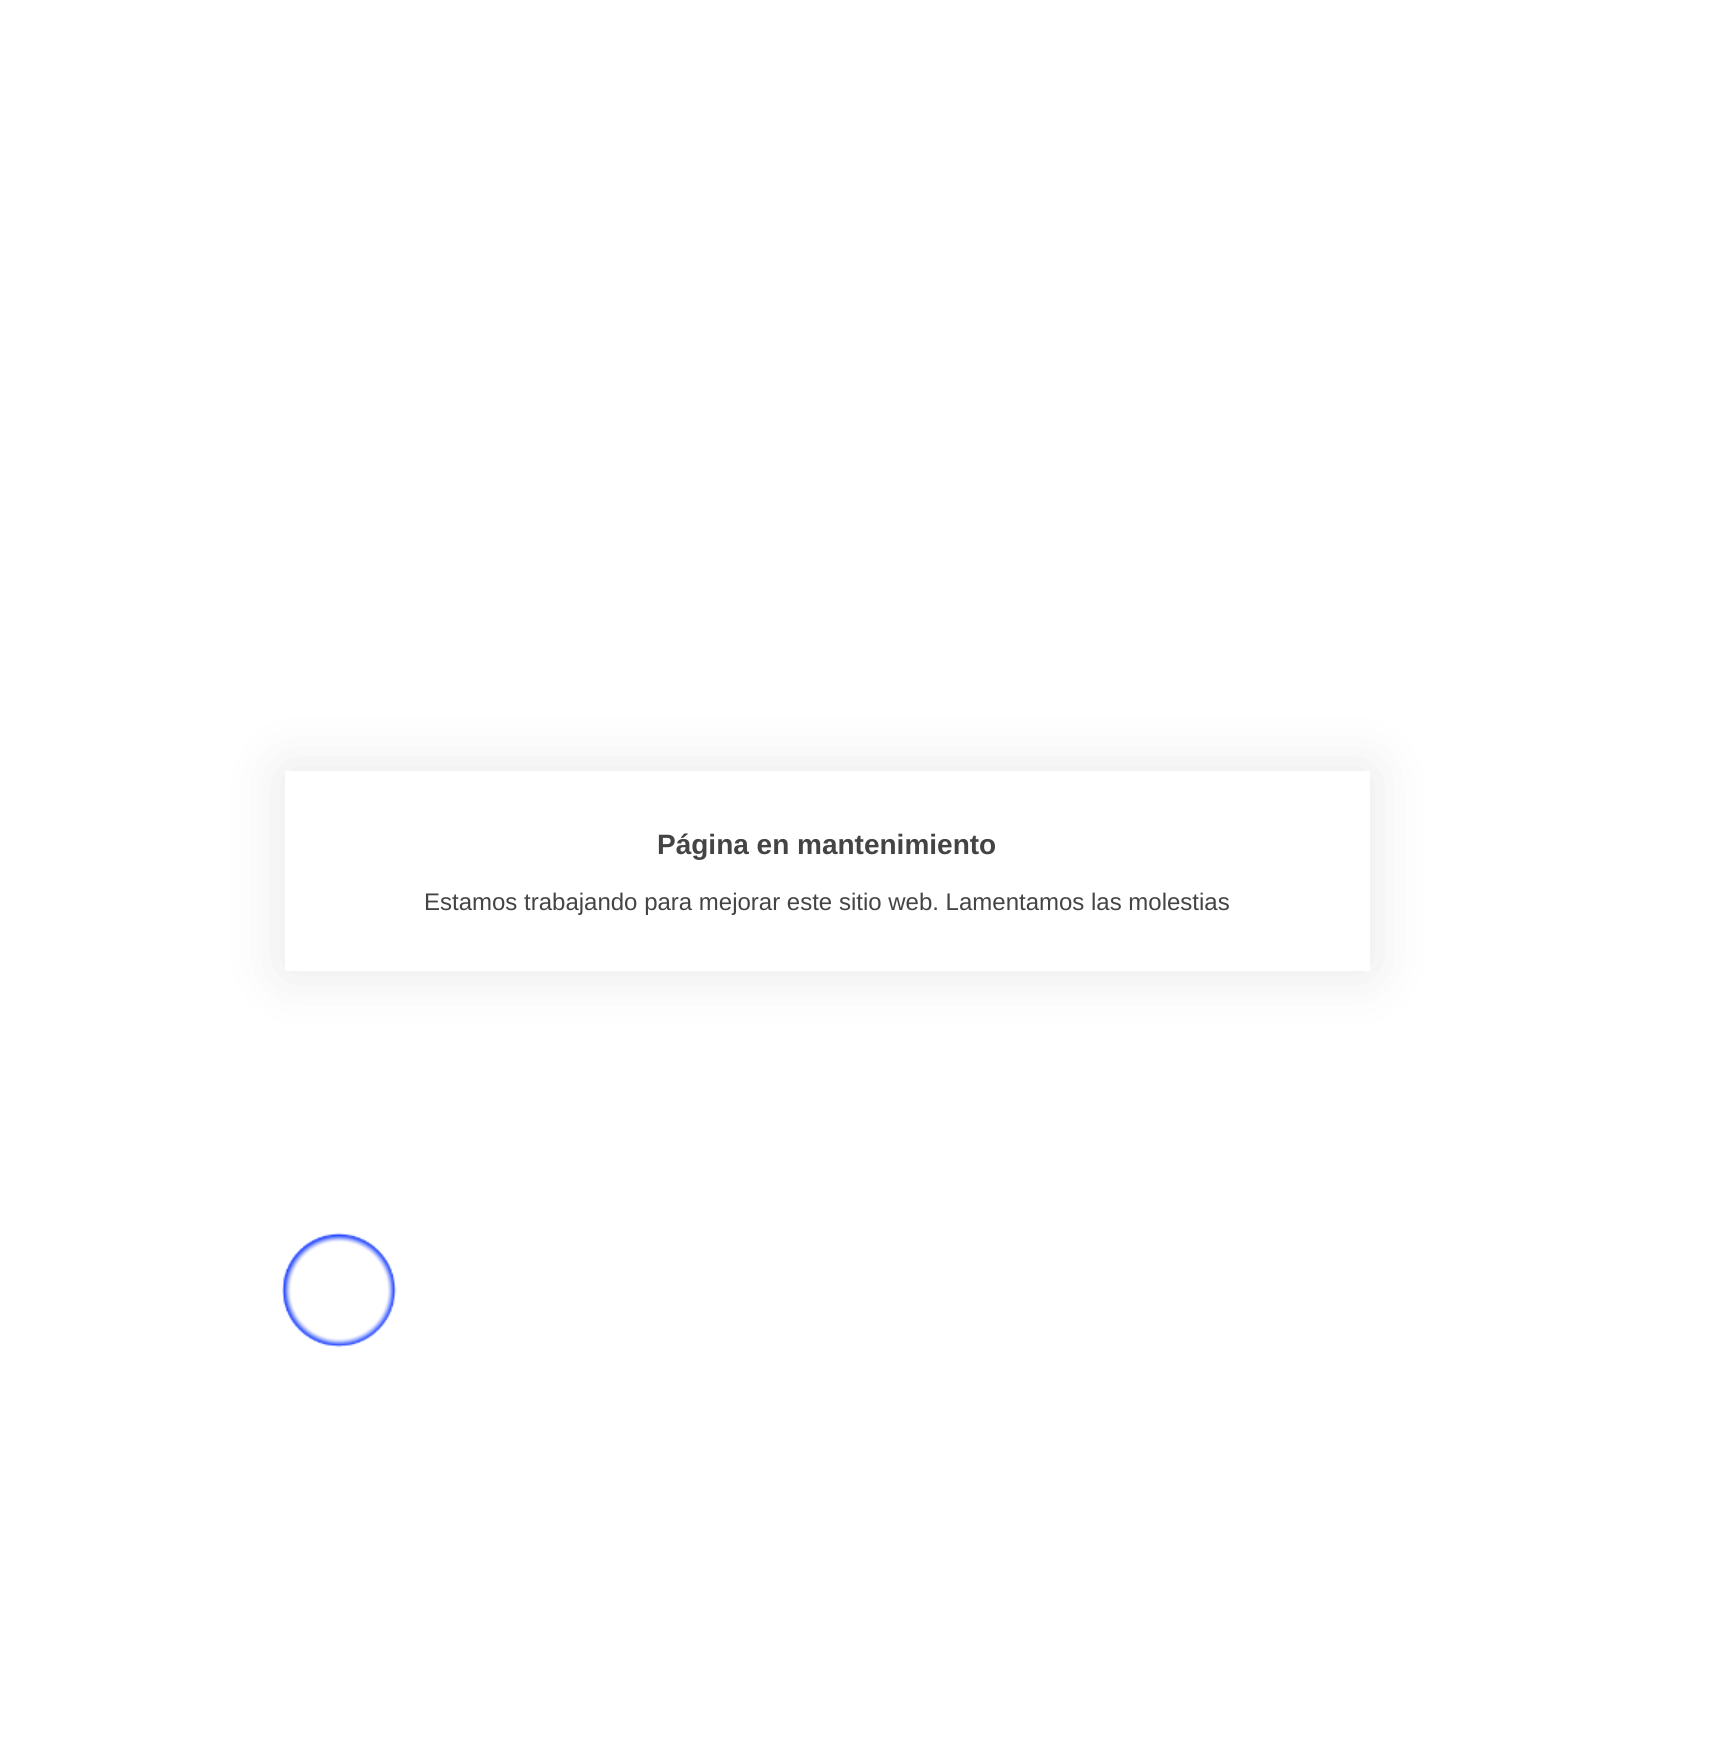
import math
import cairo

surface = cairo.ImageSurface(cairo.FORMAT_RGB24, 1711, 1739)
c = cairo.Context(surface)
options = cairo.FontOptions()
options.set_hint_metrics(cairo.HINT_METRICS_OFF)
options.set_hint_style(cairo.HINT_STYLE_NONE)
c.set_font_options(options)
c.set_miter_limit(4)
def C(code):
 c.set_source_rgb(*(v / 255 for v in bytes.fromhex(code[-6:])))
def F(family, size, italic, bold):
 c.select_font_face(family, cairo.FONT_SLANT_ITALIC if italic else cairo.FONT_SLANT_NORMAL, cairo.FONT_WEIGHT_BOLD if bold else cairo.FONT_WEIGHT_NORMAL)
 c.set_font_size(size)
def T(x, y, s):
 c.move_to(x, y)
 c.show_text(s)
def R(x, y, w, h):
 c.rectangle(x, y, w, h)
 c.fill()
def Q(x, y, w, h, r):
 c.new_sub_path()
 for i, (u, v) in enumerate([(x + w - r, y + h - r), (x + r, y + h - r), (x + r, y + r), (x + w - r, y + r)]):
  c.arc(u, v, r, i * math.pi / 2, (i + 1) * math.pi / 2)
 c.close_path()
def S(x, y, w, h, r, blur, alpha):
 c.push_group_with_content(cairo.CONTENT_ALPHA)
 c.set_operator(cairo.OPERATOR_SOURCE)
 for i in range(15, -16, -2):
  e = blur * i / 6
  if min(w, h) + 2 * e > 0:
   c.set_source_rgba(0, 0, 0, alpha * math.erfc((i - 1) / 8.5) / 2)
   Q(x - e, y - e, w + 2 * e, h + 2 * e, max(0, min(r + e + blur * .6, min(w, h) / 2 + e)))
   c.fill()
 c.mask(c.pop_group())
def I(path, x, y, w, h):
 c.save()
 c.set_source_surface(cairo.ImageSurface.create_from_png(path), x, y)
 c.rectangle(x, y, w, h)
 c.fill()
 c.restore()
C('ffffff')
c.paint()
C('000000')
S(285,771,1085,200,0,30,.1)
C('ffffff')
R(285,771,1085,200)
F('Liberation Sans',28,0,1)
C('444444')
T(657,854,'Página en mantenimiento')
F('Liberation Sans',24,0,0)
T(424,910,'Estamos trabajando para mejorar este sitio web. Lamentamos las molestias')
I('1.png',281,1232,116,116)
surface.write_to_png('o.png')
